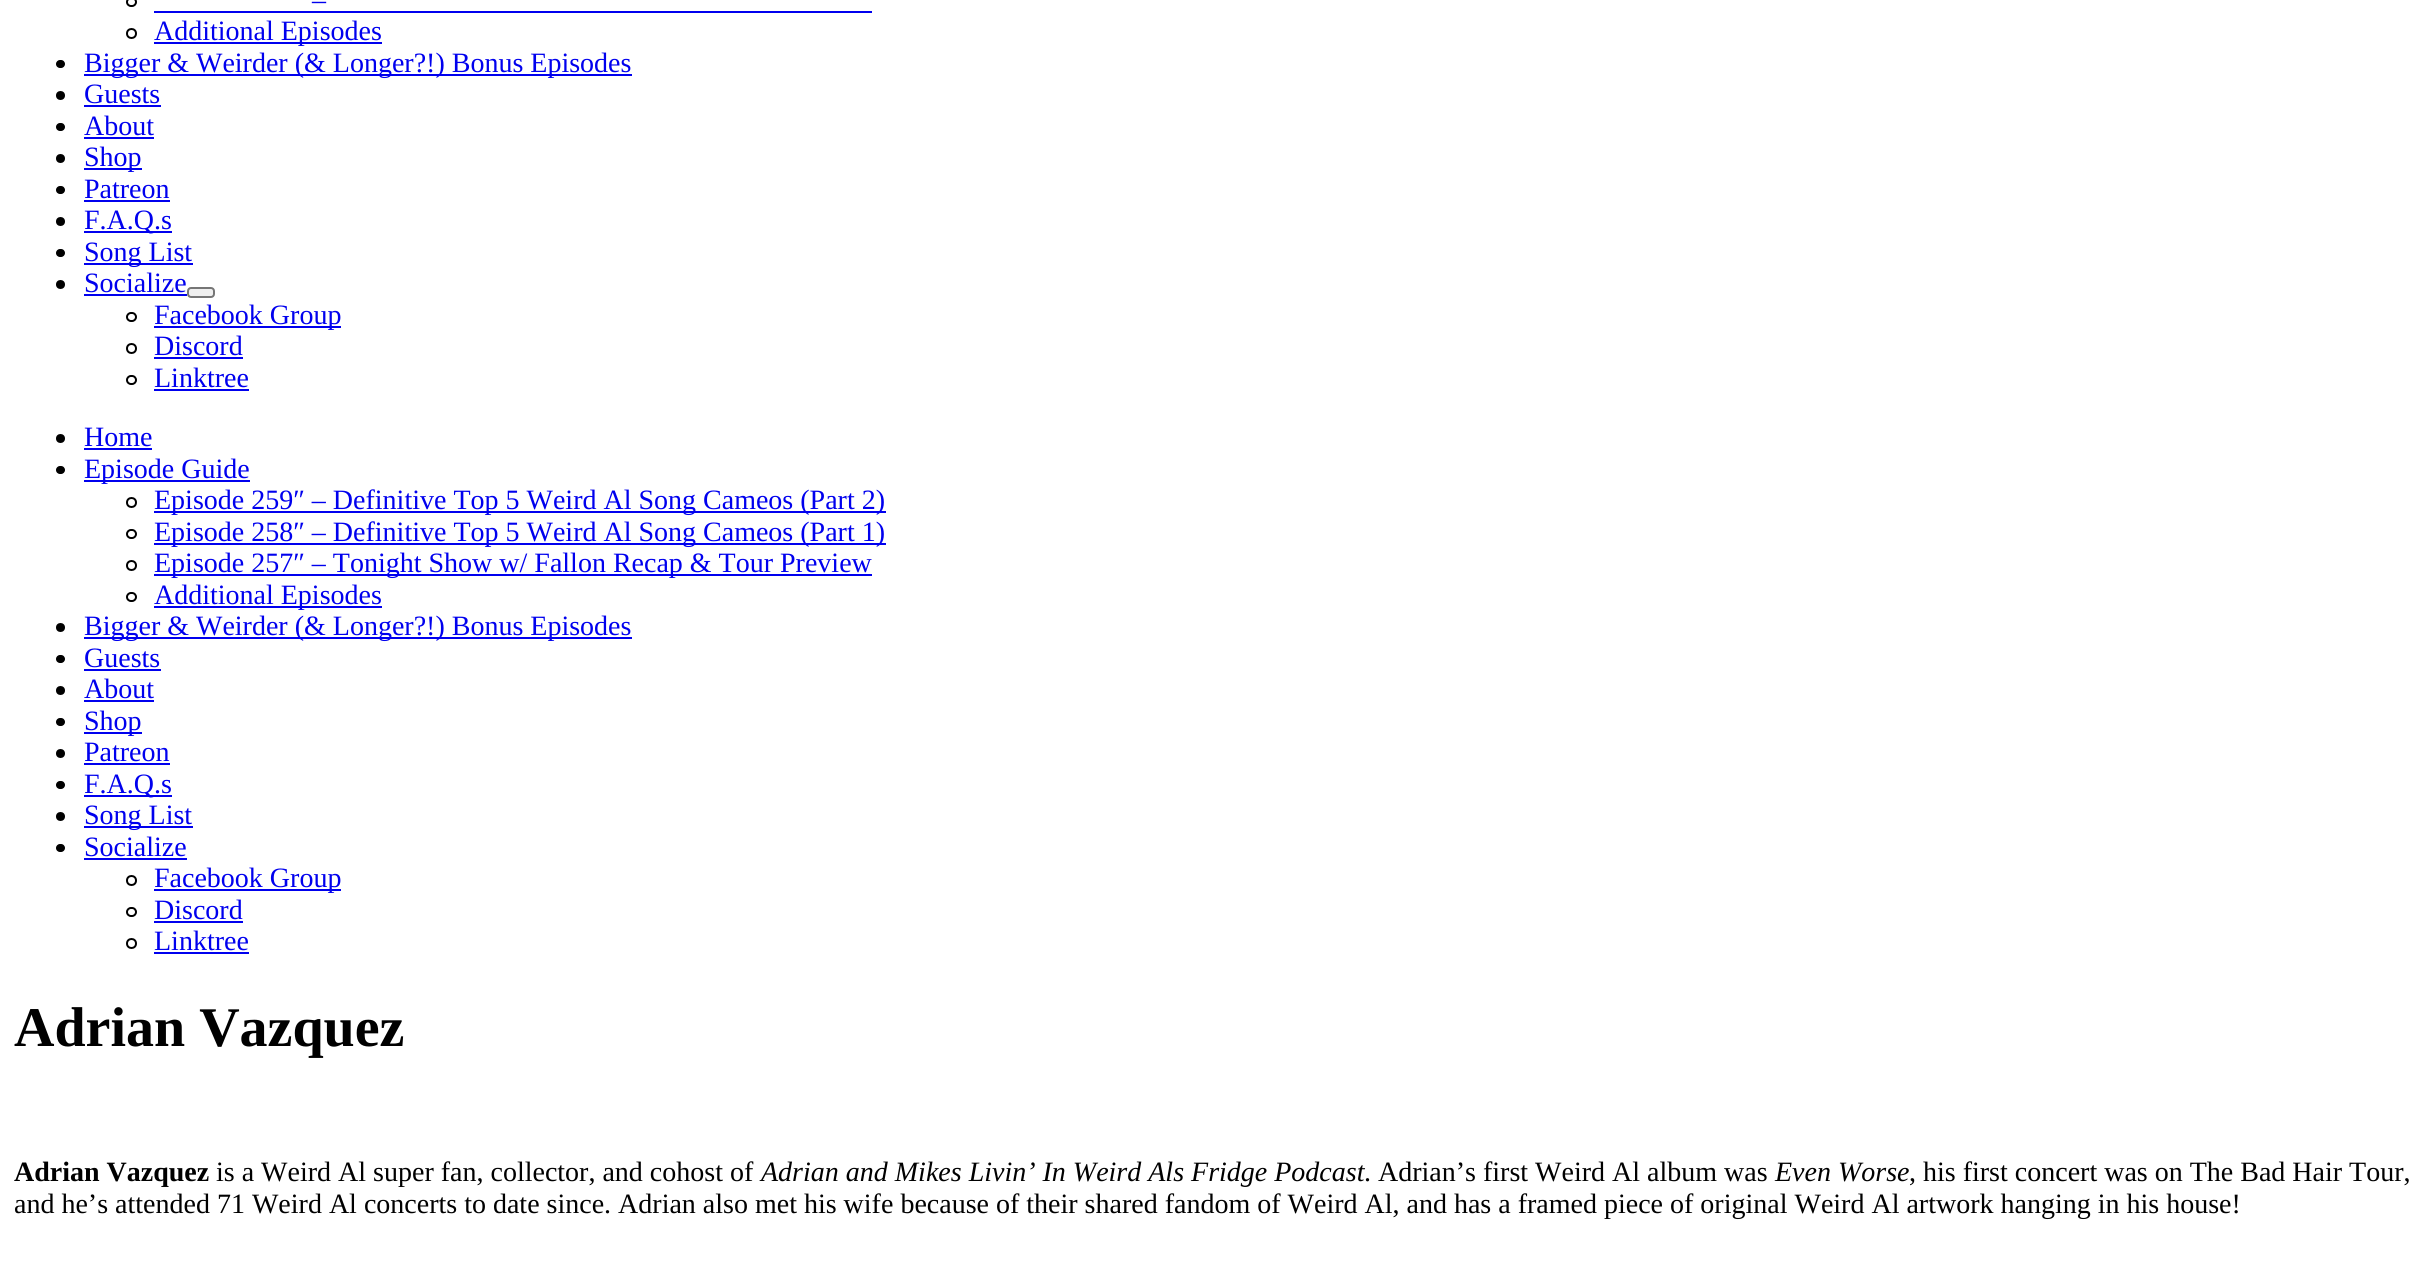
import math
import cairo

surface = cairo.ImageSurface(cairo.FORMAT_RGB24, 2424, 1277)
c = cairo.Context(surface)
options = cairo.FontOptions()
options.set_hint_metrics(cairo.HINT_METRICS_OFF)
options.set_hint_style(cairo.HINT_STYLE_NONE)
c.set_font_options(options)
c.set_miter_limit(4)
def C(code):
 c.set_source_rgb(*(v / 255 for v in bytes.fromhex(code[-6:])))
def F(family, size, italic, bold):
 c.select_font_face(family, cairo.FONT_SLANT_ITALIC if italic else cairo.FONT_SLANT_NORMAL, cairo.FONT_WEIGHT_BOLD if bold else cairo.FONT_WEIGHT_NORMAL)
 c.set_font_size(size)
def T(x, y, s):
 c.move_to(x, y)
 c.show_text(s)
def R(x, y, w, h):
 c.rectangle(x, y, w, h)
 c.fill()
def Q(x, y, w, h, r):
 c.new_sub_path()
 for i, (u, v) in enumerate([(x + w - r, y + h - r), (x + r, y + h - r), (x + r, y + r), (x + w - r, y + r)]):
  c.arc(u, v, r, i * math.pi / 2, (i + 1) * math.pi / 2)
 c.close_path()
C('ffffff')
c.paint()
Q(127,-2,9,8,4)
C('000000')
c.stroke()
F('Liberation Serif',28,0,0)
C('0000ee')
T(312,9,'–')
R(154,11,718,2)
c.new_path()
c.arc(131.5,33.5,4.5,0,2 * math.pi)
C('000000')
c.stroke()
C('0000ee')
R(154,42,228,2)
T(154,40,'Additional Episodes')
C('000000')
Q(56,60,9,8,4)
c.fill()
C('0000ee')
R(84,74,548,2)
T(84,72,'Bigger & Weirder (& Longer?!) Bonus Episodes')
C('000000')
c.new_path()
c.arc(60.5,95.5,4.5,0,2 * math.pi)
c.fill()
C('0000ee')
T(84,103,'Guests')
R(84,105,77,2)
C('000000')
Q(56,123,9,8,4)
c.fill()
C('0000ee')
T(84,135,'About')
R(84,137,70,2)
C('000000')
c.new_path()
c.arc(60.5,158.5,4.5,0,2 * math.pi)
c.fill()
C('0000ee')
R(84,168,58,2)
T(84,166,'Shop')
C('000000')
Q(56,186,9,8,4)
c.fill()
C('0000ee')
T(84,198,'Patreon')
R(84,200,86,2)
C('000000')
c.new_path()
c.arc(60.5,221.5,4.5,0,2 * math.pi)
c.fill()
C('0000ee')
R(84,231,88,2)
T(84,229,'F.A.Q.s')
C('000000')
Q(56,249,9,8,4)
c.fill()
C('0000ee')
R(84,263,109,2)
T(84,261,'Song List')
C('000000')
c.new_path()
c.arc(60.5,284.5,4.5,0,2 * math.pi)
c.fill()
C('0000ee')
T(84,292,'Socialize')
R(84,294,103,2)
C('efefef')
Q(188,288,26,9,3)
c.fill_preserve()
C('767676')
c.stroke()
Q(127,313,9,8,4)
C('000000')
c.stroke()
C('0000ee')
R(154,326,187,2)
T(154,324,'Facebook Group')
c.new_path()
c.arc(131.5,348.5,4.5,0,2 * math.pi)
C('000000')
c.stroke()
C('0000ee')
T(154,355,'Discord')
R(154,357,89,2)
Q(127,376,9,8,4)
C('000000')
c.stroke()
C('0000ee')
T(154,387,'Linktree')
R(154,389,95,2)
C('000000')
c.new_path()
c.arc(60.5,438.5,4.5,0,2 * math.pi)
c.fill()
C('0000ee')
T(84,446,'Home')
R(84,448,68,2)
C('000000')
Q(56,466,9,8,4)
c.fill()
C('0000ee')
R(84,480,166,2)
T(84,478,'Episode Guide')
c.new_path()
c.arc(131.5,502.5,4.5,0,2 * math.pi)
C('000000')
c.stroke()
C('0000ee')
R(154,511,732,2)
T(154,509,'Episode 259″ – Definitive Top 5 Weird Al Song Cameos (Part 2)')
Q(127,530,9,8,4)
C('000000')
c.stroke()
C('0000ee')
R(154,543,732,2)
T(154,541,'Episode 258″ – Definitive Top 5 Weird Al Song Cameos (Part 1)')
c.new_path()
c.arc(131.5,565.5,4.5,0,2 * math.pi)
C('000000')
c.stroke()
C('0000ee')
R(154,574,718,2)
T(154,572,'Episode 257″ – Tonight Show w/ Fallon Recap & Tour Preview')
Q(127,593,9,8,4)
C('000000')
c.stroke()
C('0000ee')
R(154,606,228,2)
T(154,604,'Additional Episodes')
C('000000')
c.new_path()
c.arc(60.5,627.5,4.5,0,2 * math.pi)
c.fill()
C('0000ee')
R(84,637,548,2)
T(84,635,'Bigger & Weirder (& Longer?!) Bonus Episodes')
C('000000')
Q(56,655,9,8,4)
c.fill()
C('0000ee')
T(84,667,'Guests')
R(84,669,77,2)
C('000000')
c.new_path()
c.arc(60.5,690.5,4.5,0,2 * math.pi)
c.fill()
C('0000ee')
T(84,698,'About')
R(84,700,70,2)
C('000000')
Q(56,718,9,8,4)
c.fill()
C('0000ee')
R(84,732,58,2)
T(84,730,'Shop')
C('000000')
c.new_path()
c.arc(60.5,753.5,4.5,0,2 * math.pi)
c.fill()
C('0000ee')
T(84,761,'Patreon')
R(84,763,86,2)
C('000000')
Q(56,781,9,8,4)
c.fill()
C('0000ee')
R(84,795,88,2)
T(84,793,'F.A.Q.s')
C('000000')
c.new_path()
c.arc(60.5,816.5,4.5,0,2 * math.pi)
c.fill()
C('0000ee')
R(84,826,109,2)
T(84,824,'Song List')
C('000000')
Q(56,844,9,8,4)
c.fill()
C('0000ee')
T(84,856,'Socialize')
R(84,858,103,2)
c.new_path()
c.arc(131.5,880.5,4.5,0,2 * math.pi)
C('000000')
c.stroke()
C('0000ee')
R(154,889,187,2)
T(154,887,'Facebook Group')
Q(127,908,9,8,4)
C('000000')
c.stroke()
C('0000ee')
T(154,919,'Discord')
R(154,921,89,2)
c.new_path()
c.arc(131.5,943.5,4.5,0,2 * math.pi)
C('000000')
c.stroke()
C('0000ee')
T(154,950,'Linktree')
R(154,952,95,2)
F('Liberation Serif',56,0,1)
C('000000')
T(14,1046,'Adrian Vazquez')
F('Liberation Serif',28,0,1)
T(14,1181,'Adrian Vazquez')
F('Liberation Serif',28,0,0)
T(216,1181,'is a Weird Al super fan, collector, and cohost of')
F('Liberation Serif',28,1,0)
T(761,1181,'Adrian and Mikes Livin’ In Weird Als Fridge Podcast')
F('Liberation Serif',28,0,0)
T(1364,1181,'. Adrian’s first Weird Al album was')
F('Liberation Serif',28,1,0)
T(1775,1181,'Even Worse')
F('Liberation Serif',28,0,0)
T(1909,1181,', his first concert was on The Bad Hair Tour,')
T(14,1213,'and he’s attended 71 Weird Al concerts to date since. Adrian also met his wife because of their shared fandom of Weird Al, and has a framed piece of original Weird Al artwork hanging in his house!')
surface.write_to_png('o.png')
